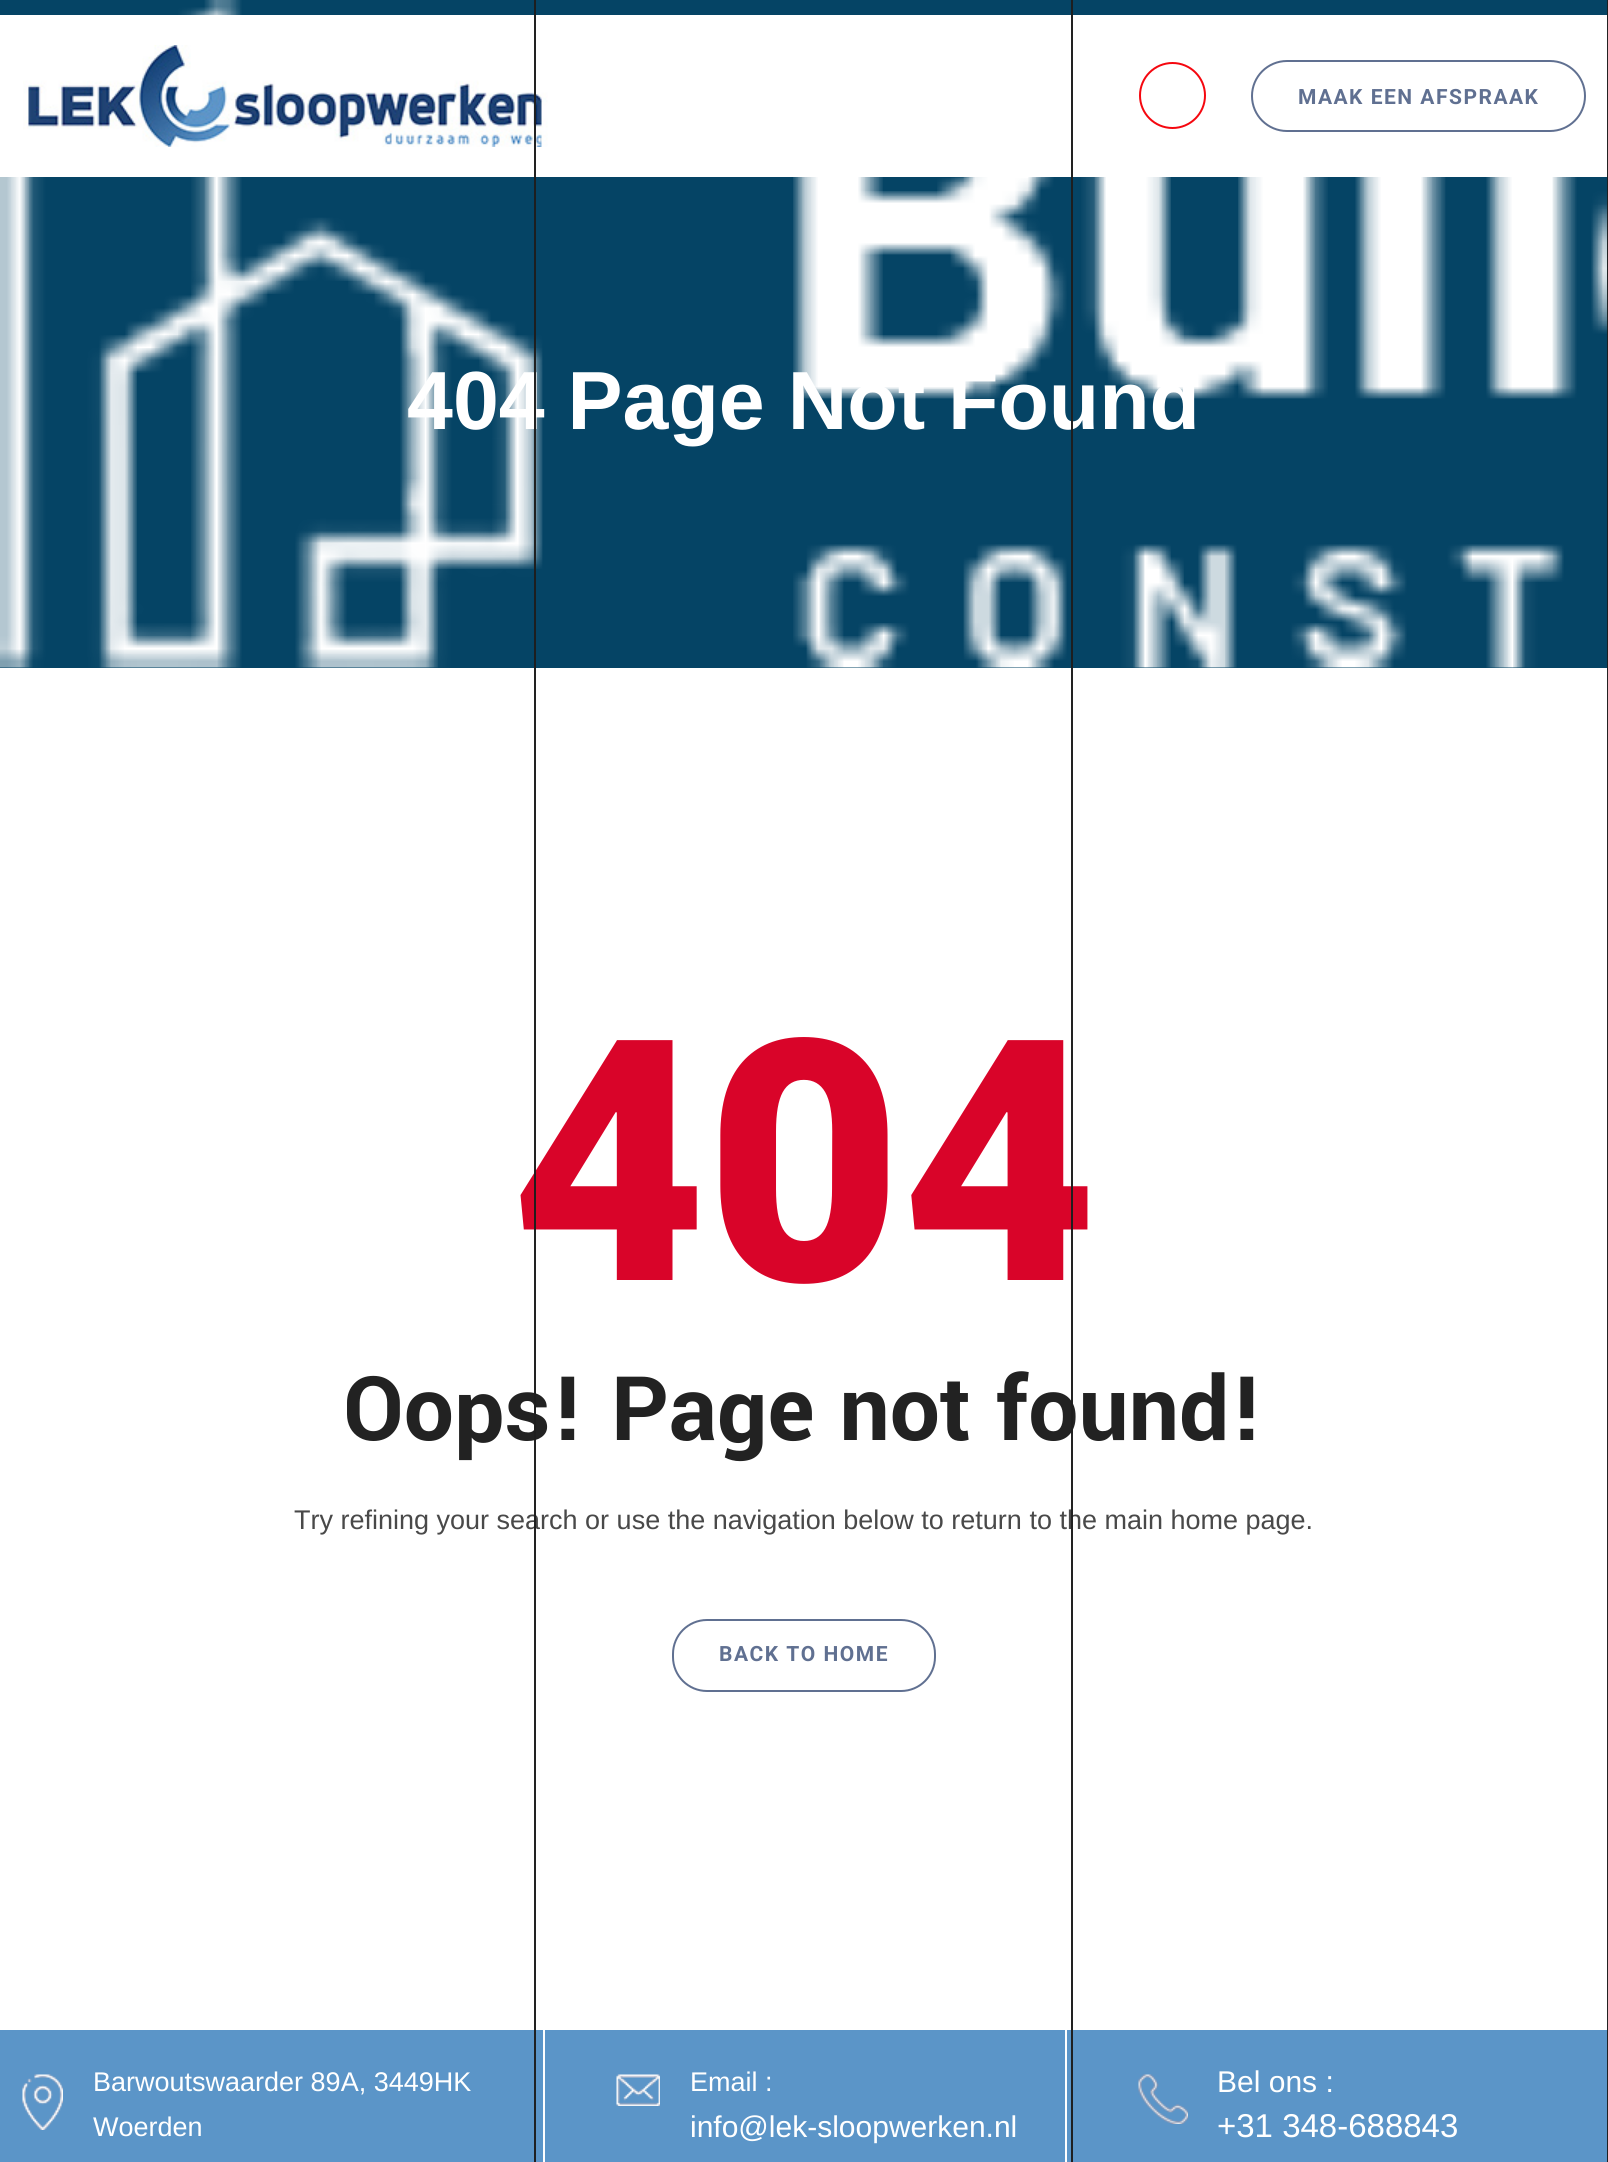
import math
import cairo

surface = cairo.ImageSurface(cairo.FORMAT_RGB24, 1608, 2162)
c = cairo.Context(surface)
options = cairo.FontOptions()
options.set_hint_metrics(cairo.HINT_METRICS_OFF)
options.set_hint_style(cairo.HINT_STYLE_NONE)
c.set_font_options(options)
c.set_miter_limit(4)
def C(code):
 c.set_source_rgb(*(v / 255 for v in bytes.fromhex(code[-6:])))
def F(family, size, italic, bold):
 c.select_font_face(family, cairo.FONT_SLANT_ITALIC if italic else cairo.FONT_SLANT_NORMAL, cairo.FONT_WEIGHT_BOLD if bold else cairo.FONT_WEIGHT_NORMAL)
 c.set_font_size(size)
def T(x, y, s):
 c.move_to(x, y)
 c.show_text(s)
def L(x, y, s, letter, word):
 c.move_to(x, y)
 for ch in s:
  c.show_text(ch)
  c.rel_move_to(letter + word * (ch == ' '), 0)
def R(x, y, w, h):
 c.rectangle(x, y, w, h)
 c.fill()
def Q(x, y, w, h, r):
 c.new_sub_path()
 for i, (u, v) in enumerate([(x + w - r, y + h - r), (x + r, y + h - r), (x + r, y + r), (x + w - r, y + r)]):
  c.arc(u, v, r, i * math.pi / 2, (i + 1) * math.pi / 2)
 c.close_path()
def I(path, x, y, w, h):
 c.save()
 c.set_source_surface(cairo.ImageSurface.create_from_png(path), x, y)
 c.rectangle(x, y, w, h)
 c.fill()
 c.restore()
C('ffffff')
c.paint()
C('054465')
R(0,0,1608,668)
I('2.png',0,0,1608,668)
C('ffffff')
R(0,15,1608,162)
I('1.png',23,45,525,102)
F('Liberation Sans',82.5,0,1)
T(407,429,'404 Page Not Found')
F('Yantramanav Black',375,0,0)
C('d90429')
T(511,1280,'404')
F('Yantramanav',99,0,1)
C('222222')
T(343,1440,'Oops! Page not found!')
F('Liberation Sans',27,0,0)
C('494949')
T(294,1529,'Try refining your search or use the navigation below to return to the main home page.')
C('5b95c8')
R(0,2030,1608,132)
c.set_source_rgba(0.118,0.118,0.118,0.98)
R(534,0,2,2162)
R(1071,0,2,2162)
R(1607,0,1,2162)
c.new_path()
c.arc(1172.5,95.5,32.5,0,2 * math.pi)
C('f5070f')
c.stroke()
Q(1252,61,333,70,35)
C('607091')
c.stroke()
F('Roboto',21,0,1)
L(1298,104,'MAAK EEN AFSPRAAK',1.5,0)
Q(673,1620,262,71,34)
c.stroke()
L(719,1661,'BACK TO HOME',1.5,0)
I('3.png',22,2074,41,56)
F('Liberation Sans',27,0,0)
C('ffffff')
T(93,2091,'Barwoutswaarder 89A, 3449HK')
T(93,2136,'Woerden')
R(543,2030,2,132)
I('4.png',616,2074,44,32)
T(690,2091,'Email :')
F('Liberation Sans',30,0,0)
T(690,2137,'info@lek-sloopwerken.nl')
R(1065,2030,2,132)
I('5.png',1138,2074,50,50)
T(1217,2092,'Bel ons :')
F('Liberation Sans',33,0,0)
T(1217,2137,'+31 348-688843')
surface.write_to_png('o.png')
